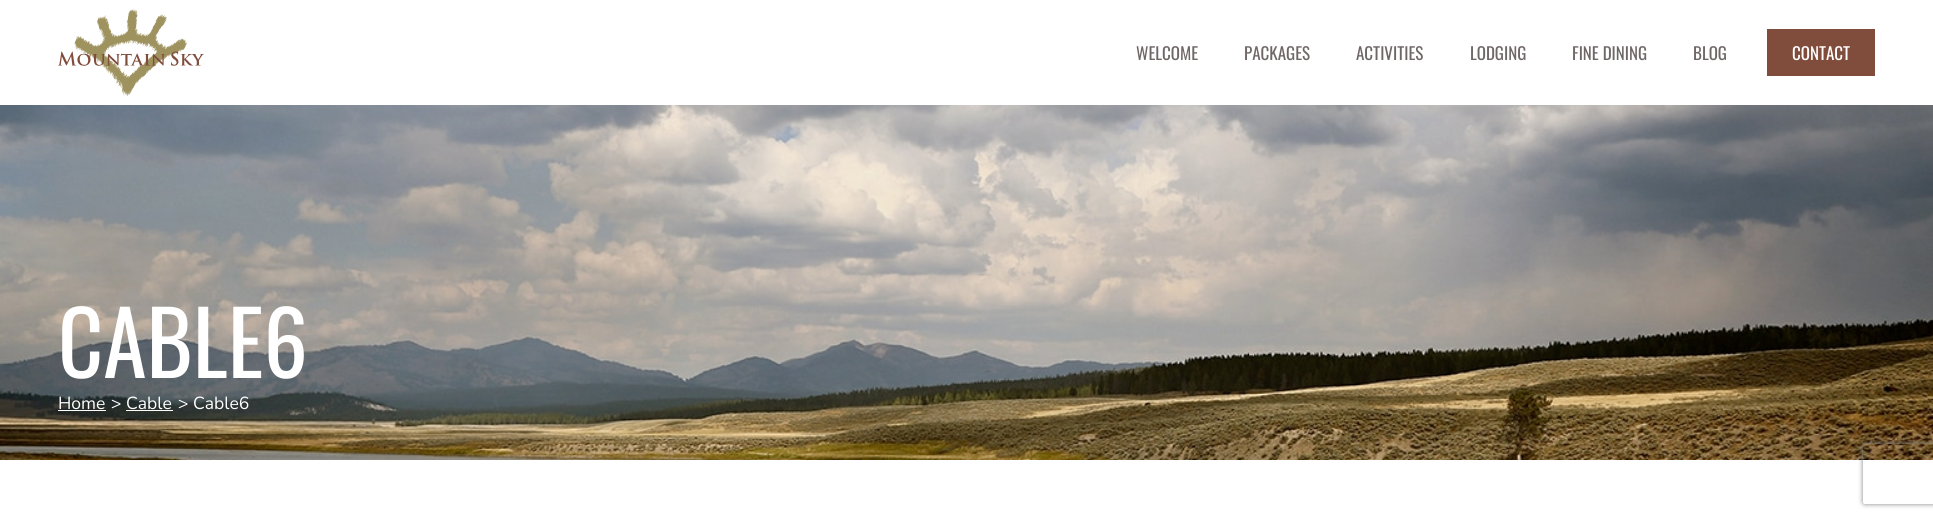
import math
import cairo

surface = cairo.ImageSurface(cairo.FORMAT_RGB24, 1933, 518)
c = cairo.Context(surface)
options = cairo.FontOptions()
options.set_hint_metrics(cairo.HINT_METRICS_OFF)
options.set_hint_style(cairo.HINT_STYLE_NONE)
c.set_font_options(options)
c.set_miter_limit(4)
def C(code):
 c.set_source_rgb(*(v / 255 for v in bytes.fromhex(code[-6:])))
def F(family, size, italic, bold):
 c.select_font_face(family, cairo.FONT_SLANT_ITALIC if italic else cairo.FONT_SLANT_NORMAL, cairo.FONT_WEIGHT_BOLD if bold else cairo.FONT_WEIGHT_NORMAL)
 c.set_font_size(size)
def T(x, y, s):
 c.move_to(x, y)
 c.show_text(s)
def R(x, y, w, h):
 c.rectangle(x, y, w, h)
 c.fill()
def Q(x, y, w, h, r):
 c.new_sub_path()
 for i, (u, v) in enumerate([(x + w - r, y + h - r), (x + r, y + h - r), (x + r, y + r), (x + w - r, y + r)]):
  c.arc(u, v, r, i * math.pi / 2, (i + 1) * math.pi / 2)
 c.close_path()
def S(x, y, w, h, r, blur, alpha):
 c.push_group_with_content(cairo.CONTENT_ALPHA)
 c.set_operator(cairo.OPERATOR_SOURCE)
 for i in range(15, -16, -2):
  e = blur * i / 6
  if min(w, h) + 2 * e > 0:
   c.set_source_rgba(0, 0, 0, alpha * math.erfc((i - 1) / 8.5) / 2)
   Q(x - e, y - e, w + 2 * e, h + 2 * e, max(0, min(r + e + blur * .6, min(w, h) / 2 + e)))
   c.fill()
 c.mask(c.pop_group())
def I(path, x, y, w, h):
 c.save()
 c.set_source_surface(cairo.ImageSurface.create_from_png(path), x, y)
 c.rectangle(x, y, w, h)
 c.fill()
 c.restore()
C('ffffff')
c.paint()
I('1.png',58,9,146,87)
F('Oswald',17,0,0)
C('6f6666')
T(1136,60,'WELCOME')
T(1244,60,'PACKAGES')
T(1356,60,'ACTIVITIES')
T(1470,60,'LODGING')
T(1572,60,'FINE DINING')
T(1693,60,'BLOG')
C('804c3b')
R(1767,29,108,47)
C('ffffff')
T(1792,60,'CONTACT')
I('2.png',0,105,1933,355)
F('Oswald',88,0,0)
T(58,378,'CABLE6')
F('Nunito',17.5,0,0)
T(58,409,'Home')
R(58,410,48,1)
T(111,409,'>')
T(126,409,'Cable')
R(126,410,47,1)
T(178,409,'>')
T(193,409,'Cable6')
c.save()
c.set_fill_rule(cairo.FILL_RULE_EVEN_ODD)
c.new_path()
c.move_to(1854,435)
c.line_to(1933,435)
c.line_to(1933,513)
c.line_to(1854,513)
c.close_path()
c.move_to(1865,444)
c.line_to(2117,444)
c.curve_to(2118,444,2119,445,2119,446)
c.line_to(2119,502)
c.curve_to(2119,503,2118,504,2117,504)
c.line_to(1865,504)
c.curve_to(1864,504,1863,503,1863,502)
c.line_to(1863,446)
c.curve_to(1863,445,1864,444,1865,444)
c.close_path()
c.clip()
C('808080')
S(1863,444,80,60,2,2.5,1)
c.restore()
surface.write_to_png('o.png')
